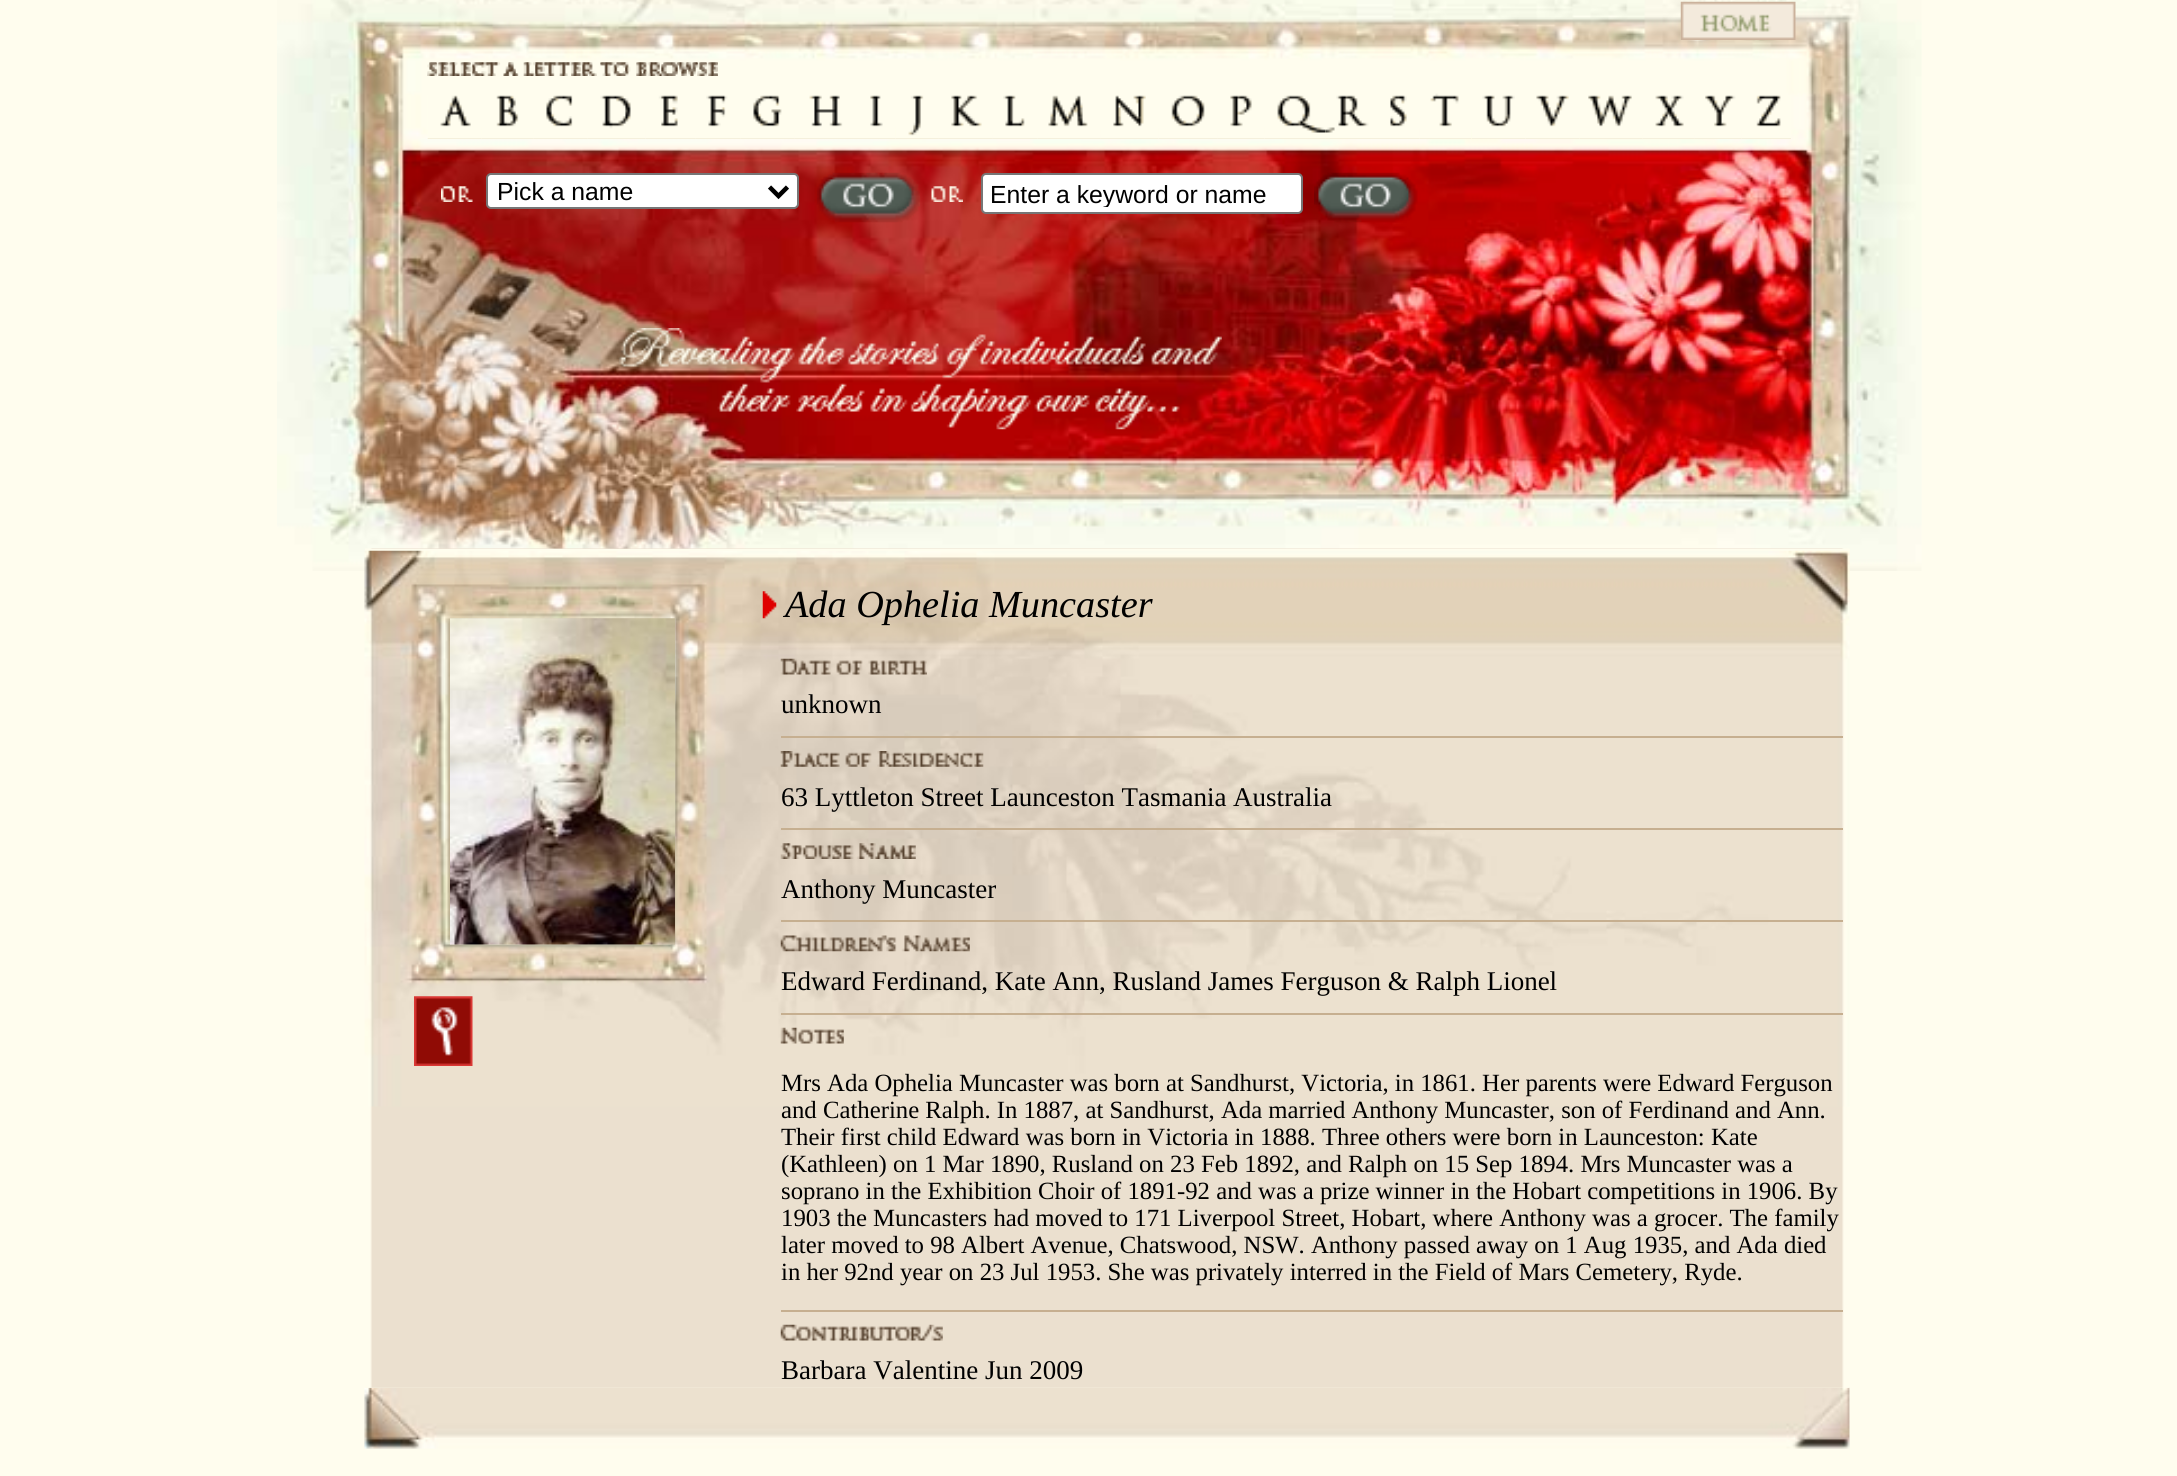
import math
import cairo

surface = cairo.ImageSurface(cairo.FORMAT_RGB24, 2177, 1476)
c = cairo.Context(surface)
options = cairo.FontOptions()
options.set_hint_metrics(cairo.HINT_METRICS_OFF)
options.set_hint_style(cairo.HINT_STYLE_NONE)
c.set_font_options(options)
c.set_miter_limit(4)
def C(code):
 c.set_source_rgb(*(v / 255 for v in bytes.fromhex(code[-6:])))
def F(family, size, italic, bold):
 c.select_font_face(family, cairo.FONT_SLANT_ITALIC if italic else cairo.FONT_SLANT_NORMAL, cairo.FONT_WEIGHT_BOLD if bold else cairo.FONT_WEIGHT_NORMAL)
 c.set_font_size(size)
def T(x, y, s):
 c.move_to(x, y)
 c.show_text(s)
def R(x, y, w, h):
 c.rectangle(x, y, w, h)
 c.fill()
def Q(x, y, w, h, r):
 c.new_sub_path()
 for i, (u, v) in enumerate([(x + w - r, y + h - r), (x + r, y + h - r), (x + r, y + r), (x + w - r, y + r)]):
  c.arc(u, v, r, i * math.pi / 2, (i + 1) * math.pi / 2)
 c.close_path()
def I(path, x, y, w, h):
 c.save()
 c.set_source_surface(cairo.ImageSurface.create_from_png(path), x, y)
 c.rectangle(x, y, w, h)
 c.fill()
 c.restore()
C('fffdee')
c.paint()
I('1.png',277,0,1645,571)
I('2.png',1680,1,116,39)
I('3.png',427,62,291,14)
I('4.png',427,62,291,14)
I('5.png',427,95,55,44)
I('6.png',481,95,53,44)
I('7.png',533,95,55,44)
I('8.png',587,95,59,44)
I('9.png',646,95,50,44)
I('10.png',695,95,46,44)
I('11.png',740,95,55,44)
I('12.png',794,95,61,44)
I('13.png',855,95,41,44)
I('14.png',895,95,44,44)
I('15.png',938,95,55,44)
I('16.png',992,95,46,44)
I('17.png',1037,95,64,44)
I('18.png',1100,95,59,44)
I('19.png',1159,95,59,44)
I('20.png',1217,95,48,44)
I('21.png',1264,95,62,44)
I('22.png',1325,95,52,44)
I('23.png',1377,95,43,44)
I('24.png',1420,93,52,46)
I('25.png',1472,95,54,44)
I('26.png',1525,95,55,44)
I('27.png',1579,95,64,44)
I('28.png',1642,95,53,44)
I('29.png',1694,95,48,44)
I('30.png',1741,95,50,44)
I('31.png',441,186,32,16)
C('ffffff')
Q(487,174,311,34,4)
c.fill_preserve()
C('767676')
c.stroke()
c.new_path()
c.move_to(769.5,187)
c.line_to(778.5,196)
c.line_to(787.5,187)
C('000000')
c.set_line_width(4.5)
c.stroke()
F('Liberation Sans',24.75,0,0)
T(497,200,'Pick a name')
I('32.png',816,172,104,51)
I('33.png',931,186,32,16)
C('ffffff')
Q(982,174,320,39,4)
c.fill_preserve()
C('767676')
c.set_line_width(2)
c.stroke()
c.save()
c.rectangle(990,180,304,27)
c.clip()
C('000000')
T(990,203,'Enter a keyword or name')
c.restore()
I('34.png',1314,172,104,51)
I('35.png',618,328,604,102)
I('47.png',364,1387,1486,62)
I('36.png',365,548,1485,840)
C('fffdee')
R(365,549,1485,2)
I('37.png',364,550,1486,557)
I('38.png',762,591,15,28)
F('Liberation Serif',38.25,1,0)
C('000000')
T(785,617,'Ada Ophelia Muncaster')
I('39.png',414,996,59,70)
I('40.png',450,618,225,327)
I('41.png',780,658,147,17)
F('Liberation Serif',27,0,0)
T(781,713,'unknown')
C('c6af90')
R(781,736,1062,2)
I('42.png',780,751,204,16)
C('000000')
T(781,806,'63 Lyttleton Street Launceston Tasmania Australia')
C('c6af90')
R(781,828,1062,2)
I('43.png',780,843,136,16)
C('000000')
T(781,898,'Anthony Muncaster')
C('c6af90')
R(781,920,1062,2)
I('44.png',780,935,190,17)
C('000000')
T(781,990,'Edward Ferdinand, Kate Ann, Rusland James Ferguson & Ralph Lionel')
C('c6af90')
R(781,1013,1062,2)
I('45.png',780,1027,64,17)
F('Liberation Serif',24.75,0,0)
C('000000')
T(781,1091,'Mrs Ada Ophelia Muncaster was born at Sandhurst, Victoria, in 1861. Her parents were Edward Ferguson')
T(781,1118,'and Catherine Ralph. In 1887, at Sandhurst, Ada married Anthony Muncaster, son of Ferdinand and Ann.')
T(781,1145,'Their first child Edward was born in Victoria in 1888. Three others were born in Launceston: Kate')
T(781,1172,'(Kathleen) on 1 Mar 1890, Rusland on 23 Feb 1892, and Ralph on 15 Sep 1894. Mrs Muncaster was a')
T(781,1199,'soprano in the Exhibition Choir of 1891-92 and was a prize winner in the Hobart competitions in 1906. By')
T(781,1226,'1903 the Muncasters had moved to 171 Liverpool Street, Hobart, where Anthony was a grocer. The family')
T(781,1253,'later moved to 98 Albert Avenue, Chatswood, NSW. Anthony passed away on 1 Aug 1935, and Ada died')
T(781,1280,'in her 92nd year on 23 Jul 1953. She was privately interred in the Field of Mars Cemetery, Ryde.')
C('c6af90')
R(781,1310,1062,2)
I('46.png',780,1324,163,17)
F('Liberation Serif',27,0,0)
C('000000')
T(781,1379,'Barbara Valentine Jun 2009')
surface.write_to_png('o.png')
